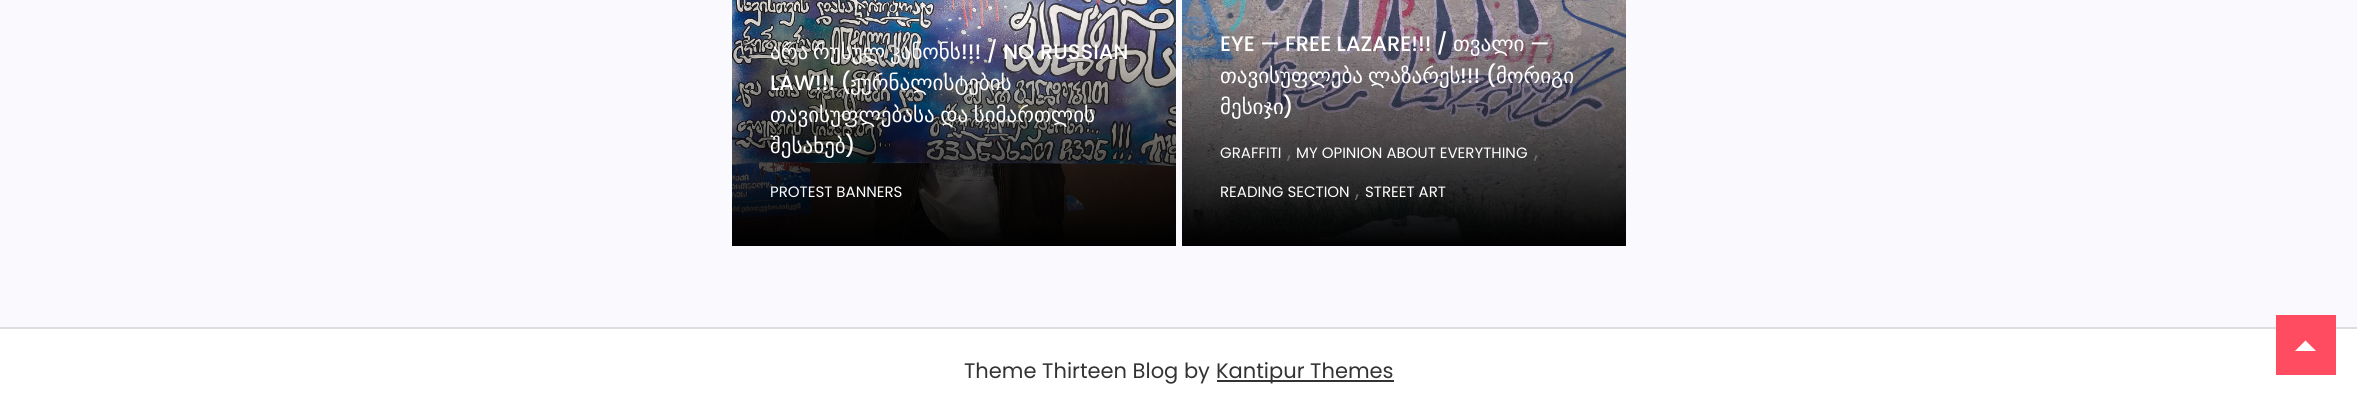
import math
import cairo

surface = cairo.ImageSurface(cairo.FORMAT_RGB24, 2357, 412)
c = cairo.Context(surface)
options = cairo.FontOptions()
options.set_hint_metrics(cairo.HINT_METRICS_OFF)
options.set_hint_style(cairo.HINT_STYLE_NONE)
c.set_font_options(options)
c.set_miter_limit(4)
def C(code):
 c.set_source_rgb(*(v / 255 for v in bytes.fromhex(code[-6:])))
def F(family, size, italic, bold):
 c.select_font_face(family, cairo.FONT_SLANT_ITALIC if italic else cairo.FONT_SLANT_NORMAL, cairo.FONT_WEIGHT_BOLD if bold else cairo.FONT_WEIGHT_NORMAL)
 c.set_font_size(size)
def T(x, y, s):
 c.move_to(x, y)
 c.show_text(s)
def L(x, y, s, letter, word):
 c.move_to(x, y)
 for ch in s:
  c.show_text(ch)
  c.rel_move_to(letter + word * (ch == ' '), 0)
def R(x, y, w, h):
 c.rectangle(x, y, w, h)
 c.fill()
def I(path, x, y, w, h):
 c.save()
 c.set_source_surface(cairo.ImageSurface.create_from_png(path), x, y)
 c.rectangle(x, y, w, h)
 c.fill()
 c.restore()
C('f9f9fe')
c.paint()
I('1.png',732,0,444,246)
F('DejaVu Sans',21,0,0)
C('ffffff')
T(770,59,'არა')
T(813,59,'რუსულ')
T(890,59,'კანონს')
F('Poppins Medium',21,0,0)
T(961,59,'!!! / NO RUSSIAN')
T(770,90,'LAW!!! (')
F('DejaVu Sans',21,0,0)
T(850,90,'ჟურნალისტების')
L(770,122,'თავისუფლებასა და სიმართლის',0,-1)
T(770,153,'შესახებ')
F('Poppins Medium',21,0,0)
T(845,153,')')
F('Poppins',15,0,0)
T(770,197,'PROTEST BANNERS')
I('2.png',1182,0,444,246)
F('Poppins Medium',21,0,0)
T(1220,51,'EYE — FREE LAZARE!!! /')
F('DejaVu Sans',21,0,0)
T(1453,51,'თვალი')
F('Poppins Medium',21,0,0)
T(1530,51,'—')
F('DejaVu Sans',21,0,0)
T(1220,83,'თავისუფლება')
T(1368,83,'ლაზარეს')
F('Poppins Medium',21,0,0)
T(1460,83,'!!! (')
F('DejaVu Sans',21,0,0)
T(1496,83,'მორიგი')
T(1220,114,'მესიჯი')
F('Poppins Medium',21,0,0)
T(1283,114,')')
F('Poppins',15,0,0)
T(1220,158,'GRAFFITI')
F('Poppins',21,0,0)
C('6f6f6f')
T(1287,158,',')
F('Poppins',15,0,0)
C('ffffff')
T(1296,158,'MY OPINION ABOUT EVERYTHING')
F('Poppins',21,0,0)
C('6f6f6f')
T(1534,158,',')
F('Poppins',15,0,0)
C('ffffff')
T(1220,197,'READING SECTION')
F('Poppins',21,0,0)
C('6f6f6f')
T(1355,197,',')
F('Poppins',15,0,0)
C('ffffff')
T(1365,197,'STREET ART')
R(0,329,2357,83)
C('dddddd')
R(0,327,2357,2)
F('Poppins',21,0,0)
C('333333')
T(964,378,'Theme Thirteen Blog by')
R(1217,380,177,2)
T(1216,378,'Kantipur Themes')
C('ff4c60')
R(2276,315,60,60)
C('ffffff')
c.new_path()
c.move_to(2316,351)
c.line_to(2295,351)
c.line_to(2305.5,340.5)
c.close_path()
c.fill()
surface.write_to_png('o.png')
